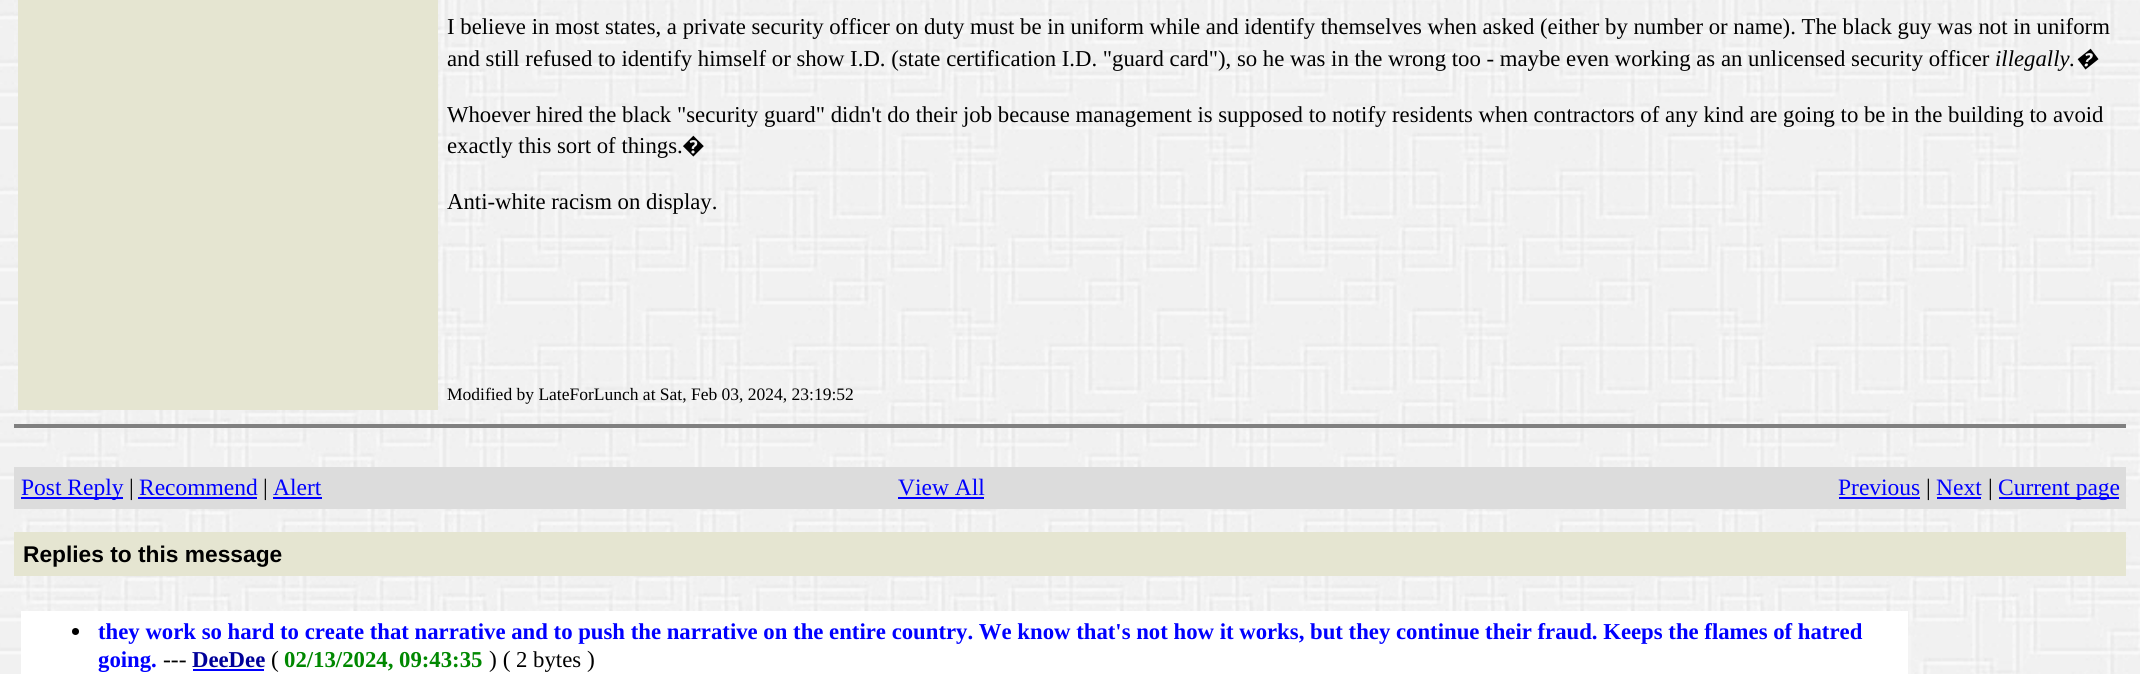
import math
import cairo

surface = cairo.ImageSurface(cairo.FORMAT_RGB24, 2140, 674)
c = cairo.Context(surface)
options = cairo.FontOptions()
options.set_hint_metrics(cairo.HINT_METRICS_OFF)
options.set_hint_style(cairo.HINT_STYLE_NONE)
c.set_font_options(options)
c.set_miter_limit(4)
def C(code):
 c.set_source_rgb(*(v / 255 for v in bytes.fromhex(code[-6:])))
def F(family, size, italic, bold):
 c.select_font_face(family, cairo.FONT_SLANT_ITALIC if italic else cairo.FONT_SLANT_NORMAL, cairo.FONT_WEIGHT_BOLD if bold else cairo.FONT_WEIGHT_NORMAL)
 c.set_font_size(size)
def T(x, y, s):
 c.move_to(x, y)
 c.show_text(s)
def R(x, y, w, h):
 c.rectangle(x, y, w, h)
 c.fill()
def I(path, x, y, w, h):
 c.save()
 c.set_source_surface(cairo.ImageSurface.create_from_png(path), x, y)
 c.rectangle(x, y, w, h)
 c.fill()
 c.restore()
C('ffffff')
c.paint()
I('1.png',0,0,2140,674)
C('e5e5d1')
R(18,0,420,410)
F('Liberation Serif',22.75,0,0)
C('000000')
T(447,34,'I believe in most states, a private security officer on duty must be in uniform while and identify themselves when asked (either by number or name). The black guy was not in uniform')
T(447,66,'and still refused to identify himself or show I.D. (state certification I.D. "guard card"), so he was in the wrong too - maybe even working as an unlicensed security officer')
F('Liberation Serif',22.75,1,0)
T(1995,66,'illegally.')
F('Noto Sans',22.75,1,0)
T(2075,66,'�')
F('Liberation Serif',22.75,0,0)
T(447,122,'Whoever hired the black "security guard" didn\'t do their job because management is supposed to notify residents when contractors of any kind are going to be in the building to avoid')
T(447,153,'exactly this sort of things.')
F('Noto Sans',22.75,0,0)
T(682,153,'�')
F('Liberation Serif',22.75,0,0)
T(447,209,'Anti-white racism on display.')
F('Liberation Serif',17.5,0,0)
T(447,400,'Modified by LateForLunch at Sat, Feb 03, 2024, 23:19:52')
C('808080')
R(14,424,2112,4)
C('dcdcdc')
R(14,467,2112,42)
C('0000ff')
R(21,497,102,2)
F('Liberation Serif',23.5,0,0)
T(21,495,'Post Reply')
C('000000')
T(129,495,'|')
C('0000ff')
T(139,495,'Recommend')
R(138,497,119,2)
C('000000')
T(263,495,'|')
C('0000ff')
T(273,495,'Alert')
R(273,497,49,2)
T(898,495,'View All')
R(898,497,86,2)
T(1838,495,'Previous')
R(1839,497,81,2)
C('000000')
T(1926,495,'|')
C('0000ff')
T(1936,495,'Next')
R(1937,497,44,2)
C('000000')
T(1988,495,'|')
C('0000ff')
R(1999,497,120,2)
T(1998,495,'Current page')
C('e5e5d1')
R(14,532,2112,44)
F('Liberation Sans',22.75,0,1)
C('000000')
T(23,562,'Replies to this message')
C('ffffff')
R(21,611,1887,63)
C('000000')
c.new_path()
c.arc(75.5,631.5,3.5,0,2 * math.pi)
c.fill()
F('Liberation Serif',22.75,0,1)
C('0000ff')
T(98,639,'they work so hard to create that narrative and to push the narrative on the entire country. We know that\'s not how it works, but they continue their fraud. Keeps the flames of hatred')
T(98,667,'going.')
F('Liberation Serif',23.5,0,0)
C('000000')
T(163,667,'---')
F('Liberation Serif',22.75,0,1)
C('000099')
T(192,667,'DeeDee')
C('0000ff')
R(193,669,71,2)
F('Liberation Serif',23.5,0,0)
C('000000')
T(271,667,'(')
F('Liberation Serif',22.75,0,1)
C('008800')
T(284,667,'02/13/2024, 09:43:35')
F('Liberation Serif',23.5,0,0)
C('000000')
T(489,667,') (')
F('Liberation Serif',22.75,0,0)
T(516,667,'2 bytes')
F('Liberation Serif',23.5,0,0)
T(587,667,')')
surface.write_to_png('o.png')
